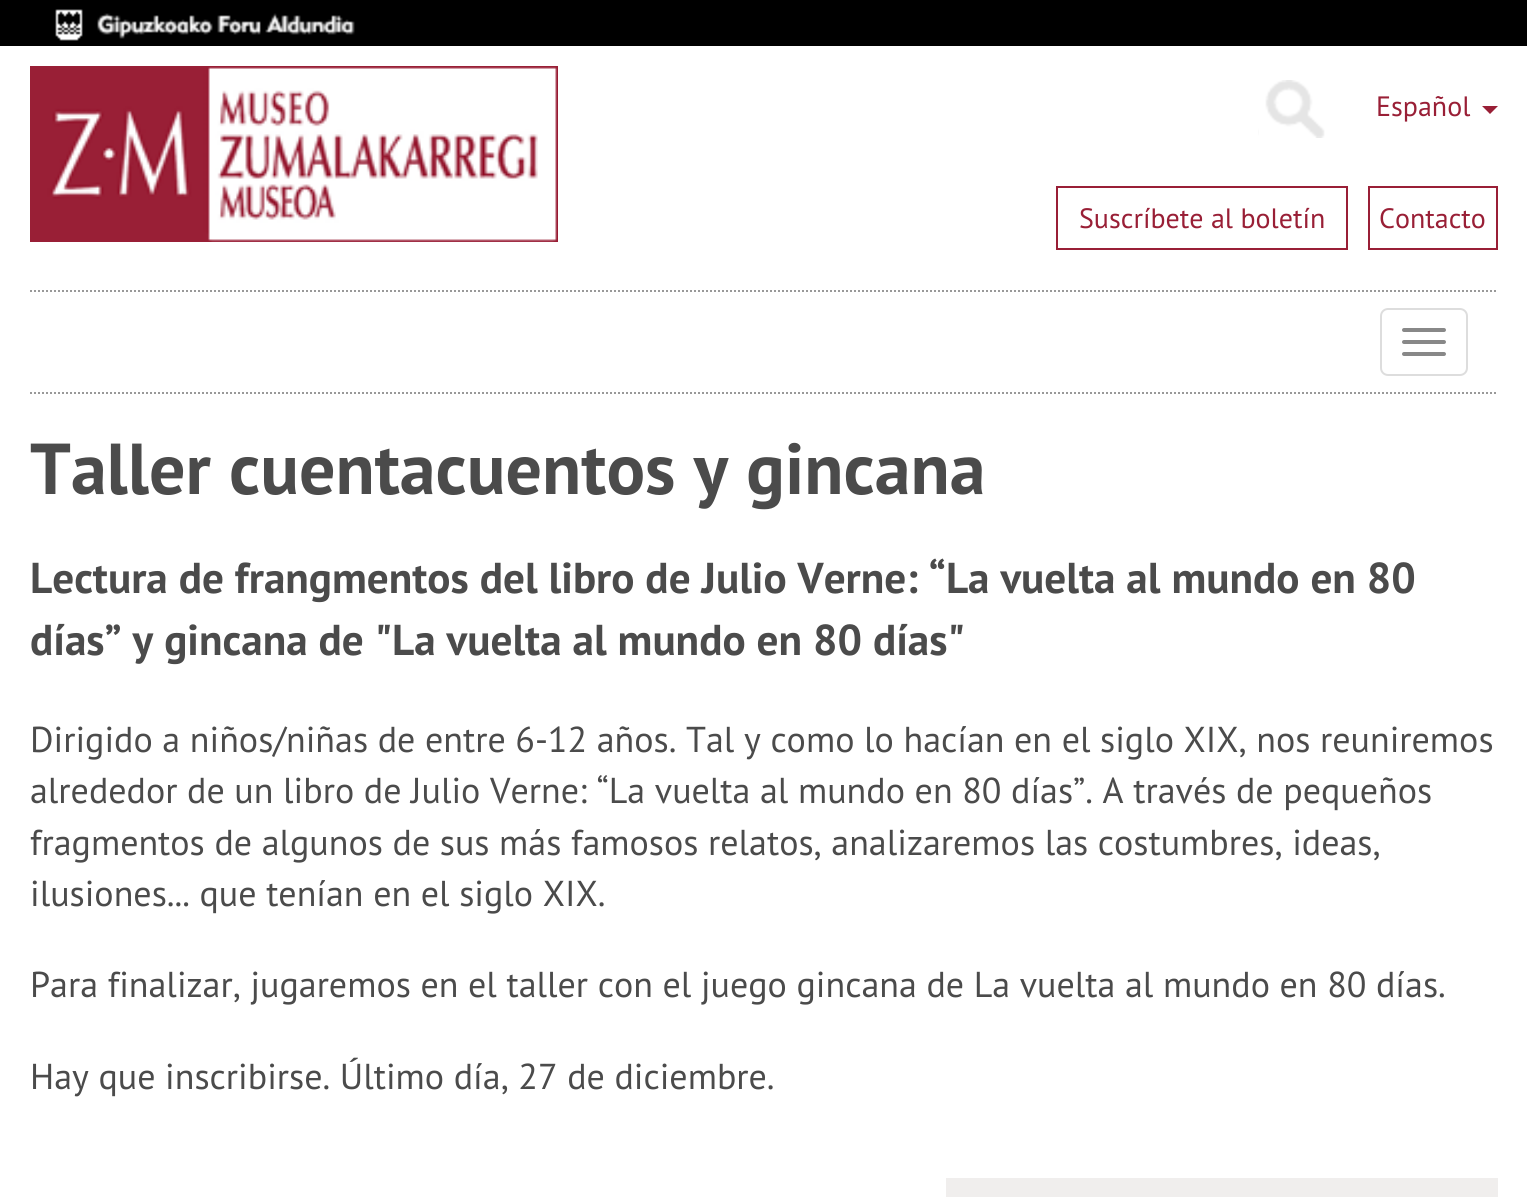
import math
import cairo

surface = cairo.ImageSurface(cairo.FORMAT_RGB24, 1527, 1197)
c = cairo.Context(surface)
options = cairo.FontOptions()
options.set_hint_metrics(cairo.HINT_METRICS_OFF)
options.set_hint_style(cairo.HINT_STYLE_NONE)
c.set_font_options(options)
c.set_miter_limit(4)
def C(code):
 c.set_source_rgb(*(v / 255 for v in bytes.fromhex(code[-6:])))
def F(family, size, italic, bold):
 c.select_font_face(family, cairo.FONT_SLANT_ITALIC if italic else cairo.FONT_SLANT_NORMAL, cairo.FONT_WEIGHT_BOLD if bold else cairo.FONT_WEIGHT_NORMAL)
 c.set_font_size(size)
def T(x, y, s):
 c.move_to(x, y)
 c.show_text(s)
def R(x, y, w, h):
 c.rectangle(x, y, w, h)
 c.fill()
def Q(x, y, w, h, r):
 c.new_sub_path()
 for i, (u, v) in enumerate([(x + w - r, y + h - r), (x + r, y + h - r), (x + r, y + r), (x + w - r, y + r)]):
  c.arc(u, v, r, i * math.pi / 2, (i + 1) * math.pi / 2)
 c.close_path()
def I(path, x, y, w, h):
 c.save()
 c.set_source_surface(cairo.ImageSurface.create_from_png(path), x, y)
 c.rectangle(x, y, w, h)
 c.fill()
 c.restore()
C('ffffff')
c.paint()
C('000000')
R(0,0,1527,46)
I('1.png',55,9,300,32)
I('2.png',30,66,528,176)
I('3.png',1258,80,67,58)
F('PT Sans',28,0,0)
C('991f36')
T(1376,116,'Español')
c.new_path()
c.move_to(1482,106)
c.line_to(1498,106)
c.line_to(1490,114)
c.close_path()
c.fill()
c.rectangle(1057,187,290,62)
c.stroke()
T(1079,228,'Suscríbete al boletín')
c.rectangle(1369,187,128,62)
c.stroke()
T(1379,228,'Contacto')
c.new_path()
c.move_to(30,291)
c.line_to(1498,291)
C('999999')
c.set_dash([2,2])
c.stroke()
c.new_path()
c.move_to(30,393)
c.line_to(1498,393)
c.stroke()
Q(1381,309,86,66,7)
C('dddddd')
c.set_dash([])
c.stroke()
C('888888')
Q(1402,328,44,4,2)
c.fill()
Q(1402,340,44,4,2)
c.fill()
Q(1402,352,44,4,2)
c.fill()
F('PT Sans',72,0,1)
C('4b4b4b')
T(30,494,'Taller cuentacuentos y gincana')
F('PT Sans',43.2,0,1)
T(30,593,'Lectura de frangmentos del libro de Julio Verne: “La vuelta al mundo en 80')
T(30,655,'días” y gincana de "La vuelta al mundo en 80 días"')
F('PT Sans',36,0,0)
T(30,752,'Dirigido a niños/niñas de entre 6-12 años. Tal y como lo hacían en el siglo XIX, nos reuniremos')
T(30,803,'alrededor de un libro de Julio Verne: “La vuelta al mundo en 80 días”. A través de pequeños')
T(30,855,'fragmentos de algunos de sus más famosos relatos, analizaremos las costumbres, ideas,')
T(30,906,'ilusiones... que tenían en el siglo XIX.')
T(30,997,'Para finalizar, jugaremos en el taller con el juego gincana de La vuelta al mundo en 80 días.')
T(30,1089,'Hay que inscribirse. Último día, 27 de diciembre.')
C('f0eeed')
R(946,1178,552,19)
surface.write_to_png('o.png')
